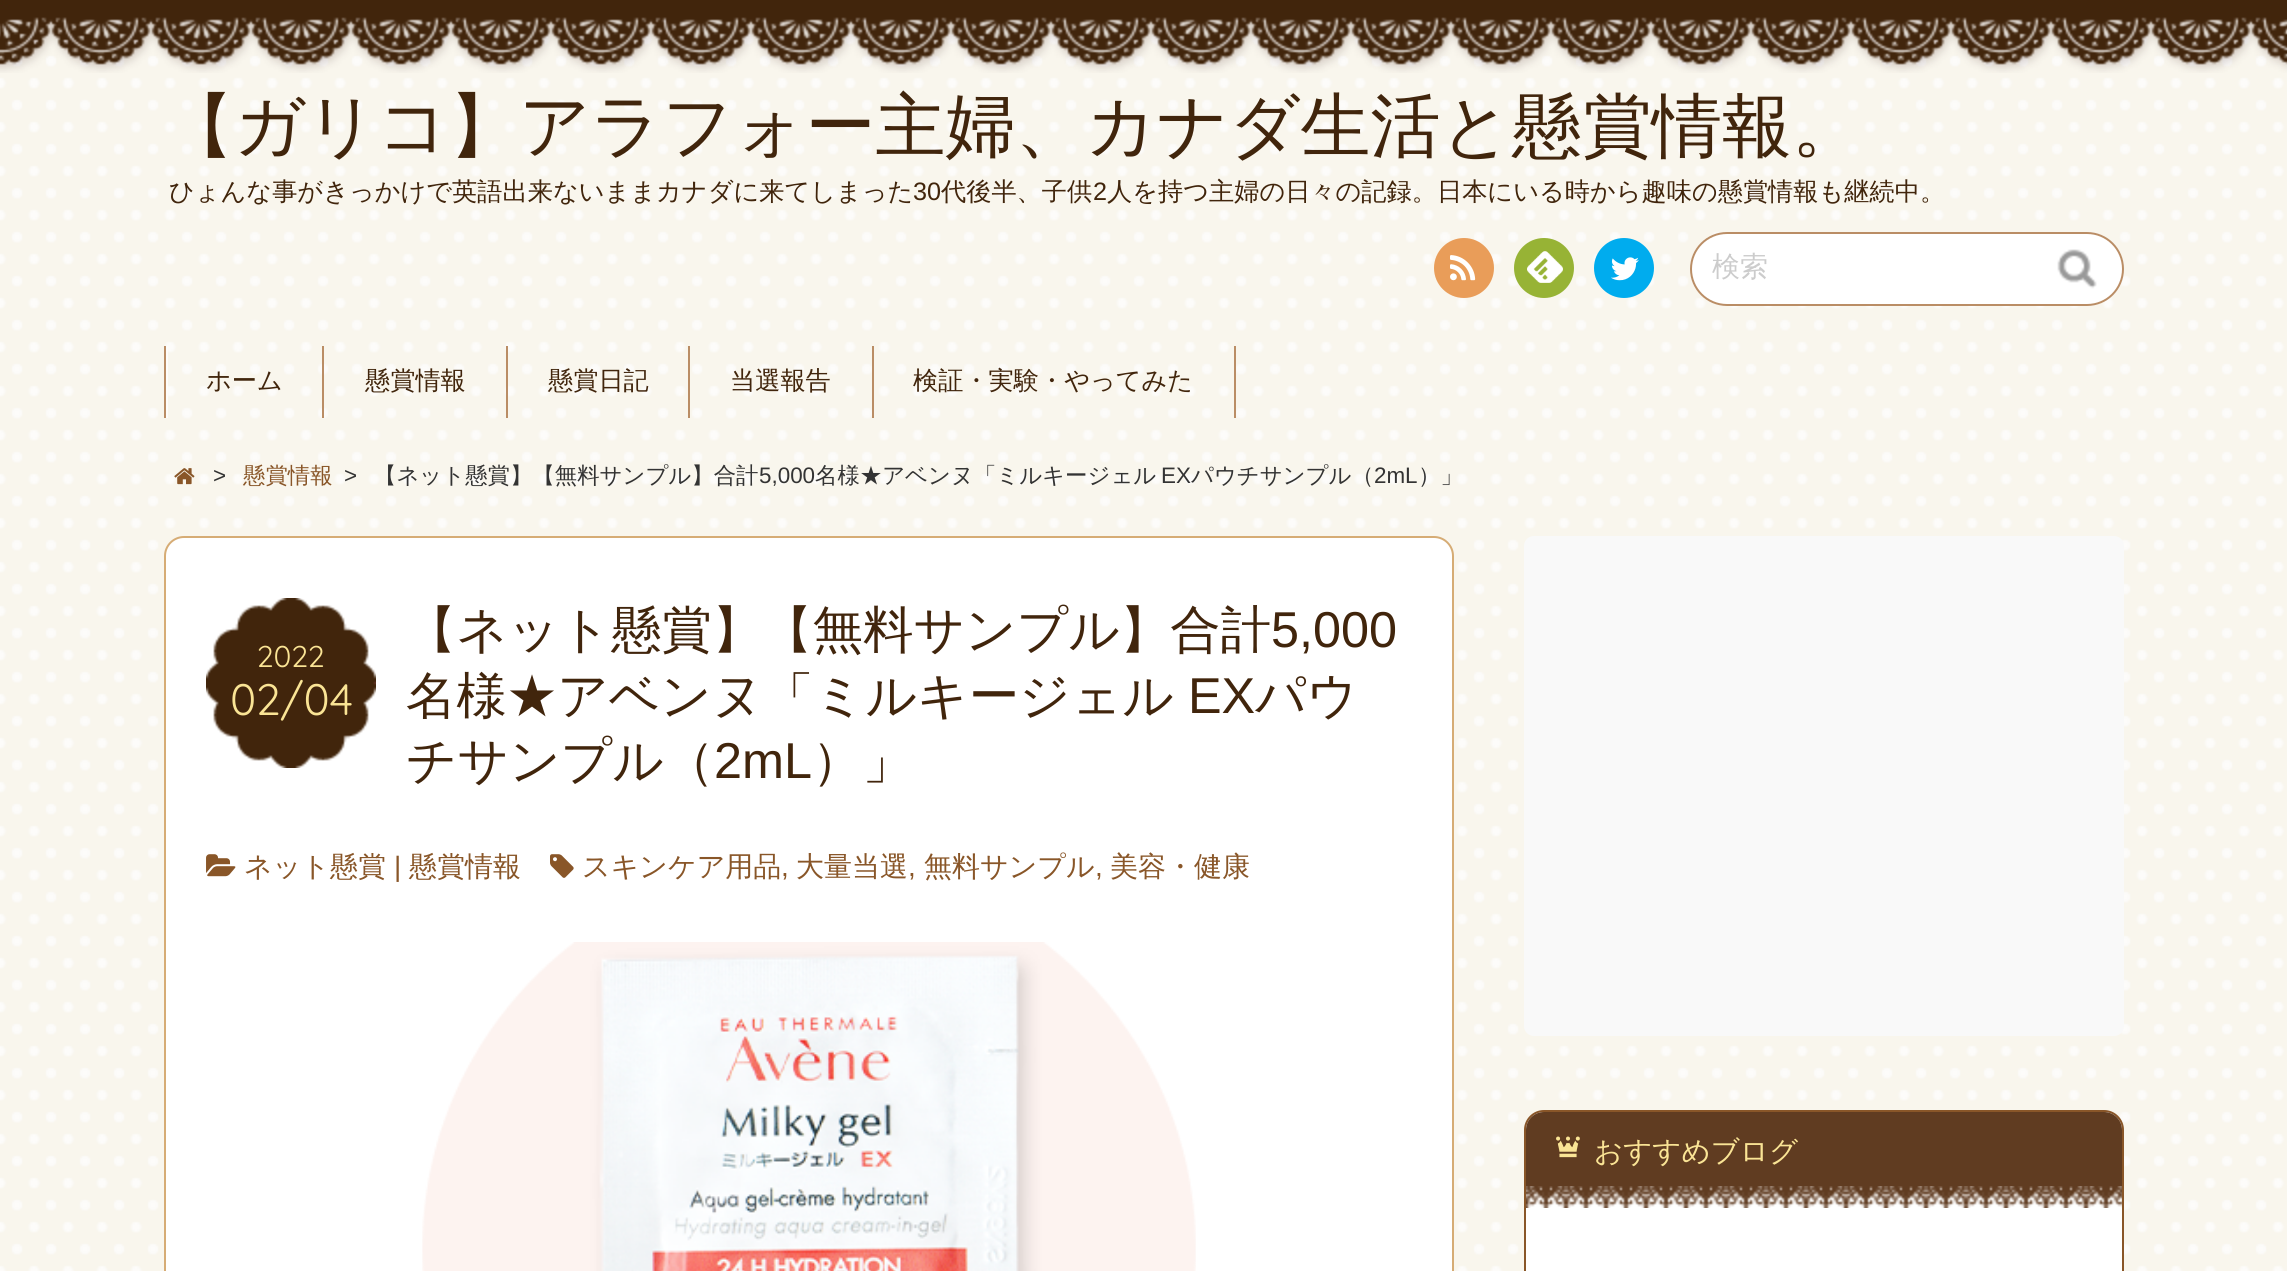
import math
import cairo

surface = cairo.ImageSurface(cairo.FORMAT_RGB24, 2287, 1271)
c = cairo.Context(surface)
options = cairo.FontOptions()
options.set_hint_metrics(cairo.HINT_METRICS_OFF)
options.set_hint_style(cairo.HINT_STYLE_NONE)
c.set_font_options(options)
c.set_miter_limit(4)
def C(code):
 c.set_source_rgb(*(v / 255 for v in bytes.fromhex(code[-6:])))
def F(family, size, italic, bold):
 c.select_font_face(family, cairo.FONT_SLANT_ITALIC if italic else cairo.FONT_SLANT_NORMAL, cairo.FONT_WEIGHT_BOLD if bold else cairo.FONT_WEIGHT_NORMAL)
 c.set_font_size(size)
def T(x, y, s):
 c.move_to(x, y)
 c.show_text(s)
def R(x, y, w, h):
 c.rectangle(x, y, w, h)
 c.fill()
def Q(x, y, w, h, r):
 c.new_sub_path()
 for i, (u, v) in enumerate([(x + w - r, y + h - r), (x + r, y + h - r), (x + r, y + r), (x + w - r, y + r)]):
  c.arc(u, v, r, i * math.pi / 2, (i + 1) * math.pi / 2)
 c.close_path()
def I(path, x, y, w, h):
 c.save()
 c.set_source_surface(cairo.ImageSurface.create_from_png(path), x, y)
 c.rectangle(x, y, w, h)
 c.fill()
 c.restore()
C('ffffff')
c.paint()
I('1.png',0,17,2287,1254)
I('2.png',0,0,2287,73)
F('WenQuanYi Zen Hei Medium',70,0,0)
C('41250c')
T(164,150,'【ガリコ】アラフォー主婦、カナダ生活と懸賞情報。')
F('WenQuanYi Zen Hei Medium',25.2,0,0)
T(169,200,'ひょんな事がきっかけで英語出来ないままカナダに来てしまった')
F('Liberation Sans',25.2,0,0)
T(913,200,'30')
F('WenQuanYi Zen Hei Medium',25.2,0,0)
T(941,200,'代後半、子供')
F('Liberation Sans',25.2,0,0)
T(1093,200,'2')
F('WenQuanYi Zen Hei Medium',25.2,0,0)
T(1107,200,'人を持つ主婦の日々の記録。日本にいる時から趣味の懸賞情報も継続中。')
C('e99d59')
c.new_path()
c.arc(1464,268,30,0,2 * math.pi)
c.fill()
I('3.png',1450,255,26,26)
C('97b335')
c.arc(1544,268,30,0,2 * math.pi)
c.fill()
I('4.png',1527,251,36,32)
C('00acee')
c.arc(1624,268,30,0,2 * math.pi)
c.fill()
I('5.png',1611,257,28,24)
C('ffffff')
Q(1690,232,434,74,37)
c.fill()
I('6.png',2057,249,40,40)
Q(1691,233,432,72,36)
C('ba8d65')
c.stroke()
F('WenQuanYi Zen Hei Medium',28,0,0)
C('cccccc')
T(1712,276,'検索')
C('fefdfb')
R(166,346,2,72)
C('ba8d65')
R(322,346,2,72)
R(164,346,2,72)
F('WenQuanYi Zen Hei Medium',25.2,0,0)
C('41250c')
T(206,389,'ホーム')
C('ba8d65')
R(506,346,2,72)
C('41250c')
T(365,389,'懸賞情報')
C('ba8d65')
R(688,346,2,72)
C('41250c')
T(548,389,'懸賞日記')
C('ba8d65')
R(872,346,2,72)
C('41250c')
T(730,389,'当選報告')
C('ba8d65')
R(1234,346,2,72)
C('41250c')
T(913,389,'検証・実験・やってみた')
I('7.png',174,468,21,17)
F('Liberation Sans',22.4,0,0)
C('333333')
T(213,483,'>')
F('WenQuanYi Zen Hei Medium',22.4,0,0)
C('895628')
T(243,483,'懸賞情報')
F('Liberation Sans',22.4,0,0)
C('333333')
T(344,483,'>')
F('WenQuanYi Zen Hei Medium',22.4,0,0)
T(374,483,'【ネット懸賞】【無料サンプル】合計')
F('Liberation Sans',22.4,0,0)
T(759,483,'5,000')
F('WenQuanYi Zen Hei Medium',22.4,0,0)
T(815,483,'名様★アベンヌ「ミルキージェル')
F('Liberation Sans',22.4,0,0)
T(1161,483,'EX')
F('WenQuanYi Zen Hei Medium',22.4,0,0)
T(1191,483,'パウチサンプル（')
F('Liberation Sans',22.4,0,0)
T(1374,483,'2mL')
F('WenQuanYi Zen Hei Medium',22.4,0,0)
T(1418,483,'）」')
C('ffffff')
Q(165,537,1288,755,19)
c.fill_preserve()
C('d6ac75')
c.stroke()
I('8.png',206,598,170,170)
F('Quicksand Light',30,0,0)
C('fae495')
T(257,667,'2022')
F('Quicksand Light',44,0,0)
T(230,715,'02/04')
F('WenQuanYi Zen Hei Medium',50.4,0,0)
C('41250c')
T(406,647,'【ネット懸賞】【無料サンプル】合計')
F('Liberation Sans',50.4,0,0)
T(1271,647,'5,000')
F('WenQuanYi Zen Hei Medium',50.4,0,0)
T(406,713,'名様★アベンヌ「ミルキージェル')
F('Liberation Sans',50.4,0,0)
T(1188,713,'EX')
F('WenQuanYi Zen Hei Medium',50.4,0,0)
T(1255,713,'パウ')
T(406,778,'チサンプル（')
F('Liberation Sans',50.4,0,0)
T(714,778,'2mL')
F('WenQuanYi Zen Hei Medium',50.4,0,0)
T(812,778,'）」')
I('9.png',206,854,30,23)
F('WenQuanYi Zen Hei Medium',28,0,0)
C('895628')
T(244,876,'ネット懸賞')
F('Liberation Sans',28,0,0)
T(394,876,'|')
F('WenQuanYi Zen Hei Medium',28,0,0)
T(409,876,'懸賞情報')
I('10.png',550,854,24,24)
T(582,876,'スキンケア用品')
F('Liberation Sans',28,0,0)
T(781,876,',')
F('WenQuanYi Zen Hei Medium',28,0,0)
T(796,876,'大量当選')
F('Liberation Sans',28,0,0)
T(908,876,',')
F('WenQuanYi Zen Hei Medium',28,0,0)
T(924,876,'無料サンプル')
F('Liberation Sans',28,0,0)
T(1095,876,',')
F('WenQuanYi Zen Hei Medium',28,0,0)
T(1110,876,'美容・健康')
I('11.png',422,942,774,329)
C('f9f9f9')
Q(1524,536,600,500,10)
c.fill()
C('ffffff')
Q(1525,1111,598,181,19)
c.fill_preserve()
C('895628')
c.stroke()
C('603c21')
c.new_path()
c.move_to(1544,1112)
c.line_to(2104,1112)
c.curve_to(2114,1112,2122,1120,2122,1130)
c.line_to(2122,1186)
c.line_to(1526,1186)
c.line_to(1526,1130)
c.curve_to(1526,1120,1534,1112,1544,1112)
c.close_path()
c.fill()
I('12.png',1556,1136,24,22)
F('WenQuanYi Zen Hei Medium',28.5,0,0)
C('fae495')
T(1594,1161,'おすすめブログ')
I('13.png',1526,1186,596,22)
surface.write_to_png('o.png')
